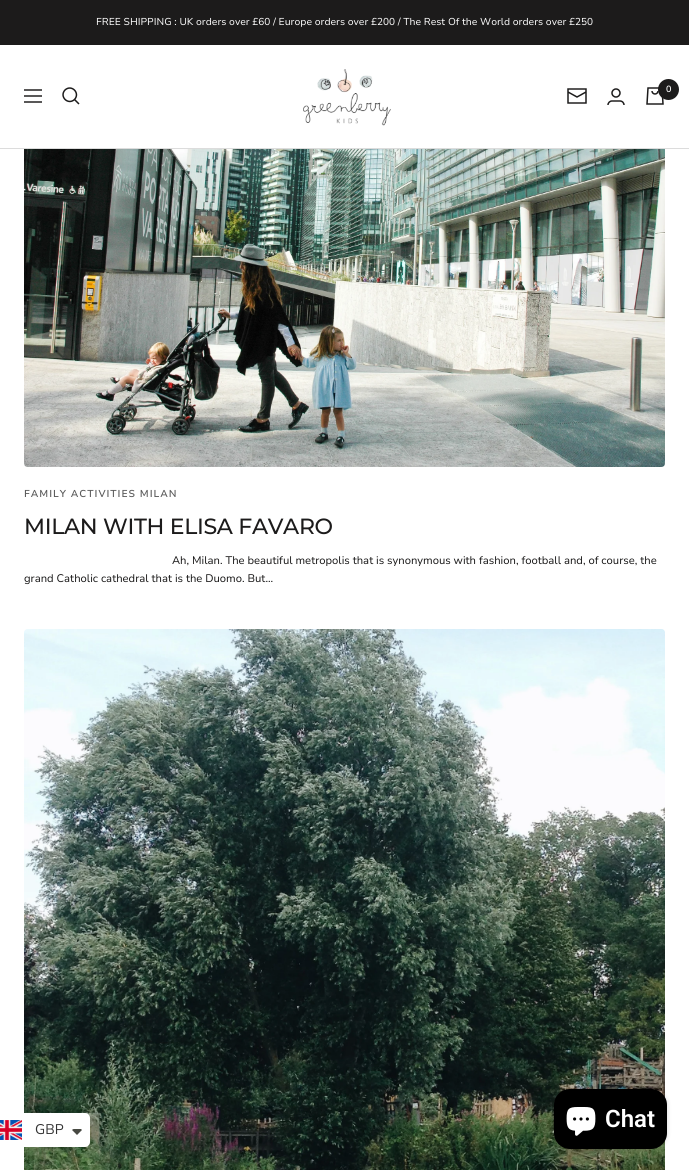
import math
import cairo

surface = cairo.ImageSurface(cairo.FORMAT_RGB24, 689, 1170)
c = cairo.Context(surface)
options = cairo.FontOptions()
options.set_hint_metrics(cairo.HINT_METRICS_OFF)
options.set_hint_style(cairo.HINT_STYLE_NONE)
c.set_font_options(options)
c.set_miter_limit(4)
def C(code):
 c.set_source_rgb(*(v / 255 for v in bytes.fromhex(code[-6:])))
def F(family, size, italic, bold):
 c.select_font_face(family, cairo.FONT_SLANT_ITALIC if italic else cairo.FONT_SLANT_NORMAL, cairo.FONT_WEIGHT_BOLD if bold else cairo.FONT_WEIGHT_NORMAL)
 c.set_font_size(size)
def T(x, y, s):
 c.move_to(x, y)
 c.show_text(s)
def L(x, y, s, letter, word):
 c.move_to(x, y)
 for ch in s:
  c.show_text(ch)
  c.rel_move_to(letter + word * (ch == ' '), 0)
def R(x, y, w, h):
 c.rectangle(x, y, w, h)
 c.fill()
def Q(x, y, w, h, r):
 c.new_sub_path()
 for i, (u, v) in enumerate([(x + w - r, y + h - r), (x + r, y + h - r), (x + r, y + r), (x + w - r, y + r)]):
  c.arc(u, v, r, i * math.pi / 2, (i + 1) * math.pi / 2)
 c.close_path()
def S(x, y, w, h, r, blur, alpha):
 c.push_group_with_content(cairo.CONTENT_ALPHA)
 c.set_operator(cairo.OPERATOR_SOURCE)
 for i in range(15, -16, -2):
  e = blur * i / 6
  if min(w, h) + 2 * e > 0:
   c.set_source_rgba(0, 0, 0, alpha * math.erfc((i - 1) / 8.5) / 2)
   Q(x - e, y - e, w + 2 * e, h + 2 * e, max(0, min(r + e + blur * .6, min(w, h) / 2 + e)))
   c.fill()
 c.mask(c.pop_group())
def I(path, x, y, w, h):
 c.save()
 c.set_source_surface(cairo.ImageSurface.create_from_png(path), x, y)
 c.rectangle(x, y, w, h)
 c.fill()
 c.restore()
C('ffffff')
c.paint()
C('1c1b1b')
R(0,0,689,45)
F('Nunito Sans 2',10,0,0)
C('ffffff')
T(96,25,'FREE SHIPPING : UK orders over £60 / Europe orders over £200 / The Rest Of the World orders over £250')
C('dcdcdc')
R(0,148,689,1)
c.new_path()
c.move_to(24,90)
c.line_to(42,90)
c.move_to(24,102)
c.line_to(42,102)
c.close_path()
c.move_to(24,96)
c.line_to(42,96)
c.close_path()
c.move_to(74.5,99.5)
c.curve_to(80.5,93,71.5,84,65,90)
c.curve_to(59,96.5,68,105.5,74.5,99.5)
c.close_path()
c.move_to(74.5,99.5)
c.line_to(79,104)
C('1c1b1b')
c.set_line_width(1.5)
c.stroke()
I('1.png',303,69,88,57)
c.new_path()
c.move_to(586,92)
c.line_to(577,97)
c.line_to(568,92)
c.move_to(568,89)
c.line_to(586,89)
c.line_to(586,103)
c.line_to(568,103)
c.close_path()
c.stroke()
I('2.png',607,88,18,17)
I('3.png',646,87,18,18)
c.arc(668.5,89.5,10.5,0,2 * math.pi)
c.fill()
F('Nunito Sans 2 SemiBold',9,0,0)
C('ffffff')
T(666,92,'0')
I('4.png',24,149,641,318)
F('Nunito Sans SemiBold',10,0,0)
C('5b5b5b')
L(24,497,'FAMILY ACTIVITIES MILAN',1,0)
F('Montserrat Medium',22,0,0)
C('1c1b1b')
L(24,534,'MILAN WITH ELISA FAVARO',-.3,0)
F('Nunito Sans',11,0,0)
C('151414')
T(172,564,'Ah, Milan. The beautiful metropolis that is synonymous with fashion, football and, of course, the')
T(24,582,'grand Catholic cathedral that is the Duomo. But...')
I('5.png',24,629,641,541)
C('000000')
S(554,1089,113,60,16,2.5,.15)
C('000000')
Q(554,1089,113,60,16)
c.fill()
I('6.png',566,1107,30,29)
F('Roboto SemiBold',24,0,0)
C('ffffff')
T(605,1127,'Chat')
Q(-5,1113,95,34,5)
c.fill()
I('7.png',0,1120,22,20)
F('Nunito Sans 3',14,0,0)
C('333333')
T(35,1134,'GBP')
C('474942')
c.new_path()
c.move_to(74,1129)
c.curve_to(73,1129,72.5,1129.5,72,1130)
c.line_to(77,1135)
c.line_to(82,1130)
c.line_to(81,1129)
c.close_path()
c.fill()
surface.write_to_png('o.png')
